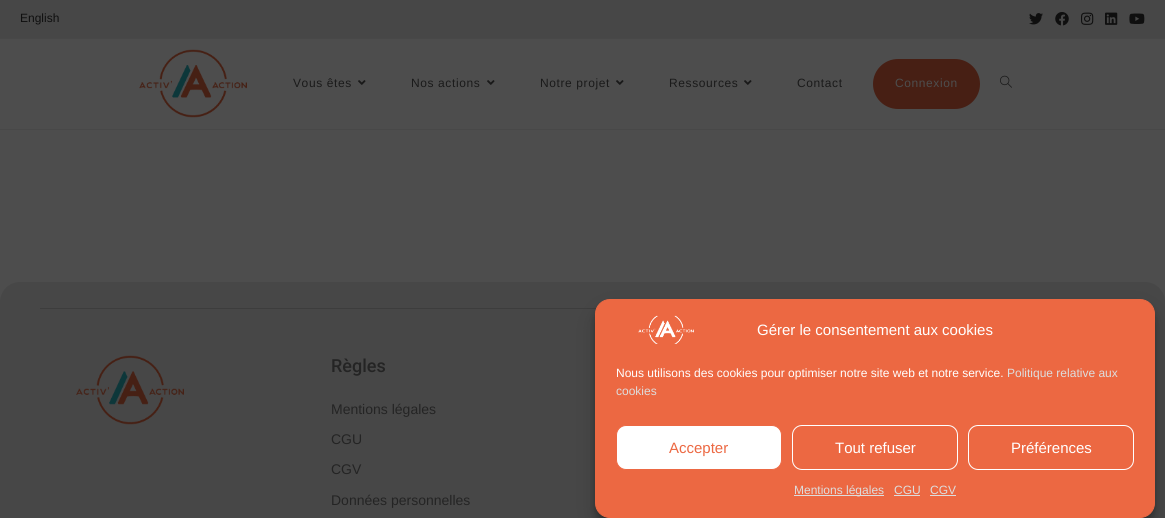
import math
import cairo

surface = cairo.ImageSurface(cairo.FORMAT_RGB24, 1165, 518)
c = cairo.Context(surface)
options = cairo.FontOptions()
options.set_hint_metrics(cairo.HINT_METRICS_OFF)
options.set_hint_style(cairo.HINT_STYLE_NONE)
c.set_font_options(options)
c.set_miter_limit(4)
def C(code):
 c.set_source_rgb(*(v / 255 for v in bytes.fromhex(code[-6:])))
def F(family, size, italic, bold):
 c.select_font_face(family, cairo.FONT_SLANT_ITALIC if italic else cairo.FONT_SLANT_NORMAL, cairo.FONT_WEIGHT_BOLD if bold else cairo.FONT_WEIGHT_NORMAL)
 c.set_font_size(size)
def T(x, y, s):
 c.move_to(x, y)
 c.show_text(s)
def L(x, y, s, letter, word):
 c.move_to(x, y)
 for ch in s:
  c.show_text(ch)
  c.rel_move_to(letter + word * (ch == ' '), 0)
def R(x, y, w, h):
 c.rectangle(x, y, w, h)
 c.fill()
def Q(x, y, w, h, r):
 c.new_sub_path()
 for i, (u, v) in enumerate([(x + w - r, y + h - r), (x + r, y + h - r), (x + r, y + r), (x + w - r, y + r)]):
  c.arc(u, v, r, i * math.pi / 2, (i + 1) * math.pi / 2)
 c.close_path()
def S(x, y, w, h, r, blur, alpha):
 c.push_group_with_content(cairo.CONTENT_ALPHA)
 c.set_operator(cairo.OPERATOR_SOURCE)
 for i in range(15, -16, -2):
  e = blur * i / 6
  if min(w, h) + 2 * e > 0:
   c.set_source_rgba(0, 0, 0, alpha * math.erfc((i - 1) / 8.5) / 2)
   Q(x - e, y - e, w + 2 * e, h + 2 * e, max(0, min(r + e + blur * .6, min(w, h) / 2 + e)))
   c.fill()
 c.mask(c.pop_group())
def I(path, x, y, w, h):
 c.save()
 c.set_source_surface(cairo.ImageSurface.create_from_png(path), x, y)
 c.rectangle(x, y, w, h)
 c.fill()
 c.restore()
C('4d4d4d')
c.paint()
C('474747')
R(0,0,1165,38)
C('484848')
R(0,38,1165,1)
F('Liberation Sans',12,0,0)
C('0f0f0f')
T(20,22,'English')
I('1.png',1029,13,14,12)
I('2.png',1055,12,14,14)
I('3.png',1081,12,13,13)
I('4.png',1105,12,13,13)
I('5.png',1129,13,16,11)
C('484848')
R(0,129,1165,1)
I('6.png',139,49,108,69)
C('1a1a1a')
L(293,87,'Vous êtes',.6,0)
I('7.png',358,80,8,5)
L(411,87,'Nos actions',.6,0)
I('7.png',487,80,8,5)
L(540,87,'Notre projet',.6,0)
I('7.png',616,80,8,5)
L(669,87,'Ressources',.6,0)
I('7.png',744,80,8,5)
L(797,87,'Contact',.6,0)
C('471f14')
Q(874,60,105,48,24)
c.fill_preserve()
c.stroke()
C('4d4d4d')
L(895,87,'Connexion',.6,0)
I('8.png',1000,75,12,13)
C('474747')
c.new_path()
c.move_to(20,282)
c.line_to(1145,282)
c.curve_to(1156,282,1165,291,1165,302)
c.line_to(1165,335)
c.line_to(0,335)
c.line_to(0,302)
c.curve_to(0,291,9,282,20,282)
c.close_path()
c.fill()
C('3d3d3d')
R(40,308,557,1)
C('474747')
R(0,335,1165,183)
I('9.png',76,355,108,70)
F('Roboto Medium',18,0,0)
C('242424')
T(331,372,'Règles')
F('Liberation Sans',14,0,0)
T(331,414,'Mentions légales')
T(331,444,'CGU')
T(331,474,'CGV')
T(331,505,'Données personnelles')
C('000000')
S(595,305,560,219,15,3,.23)
S(595,309,560,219,15,10,.19)
C('ec6842')
Q(595.5,299.5,559,218,14.5)
c.fill_preserve()
c.set_line_width(1)
c.stroke()
I('10.png',638,315,56,29)
F('Liberation Sans',15,0,0)
C('ffffff')
T(757,335,'Gérer le consentement aux cookies')
F('Liberation Sans',12,0,0)
T(616,377,'Nous utilisons des cookies pour optimiser notre site web et notre service.')
C('dddddd')
T(1007,377,'Politique relative aux')
T(616,395,'cookies')
C('ffffff')
Q(616.5,425.5,165,44,9.5)
c.fill_preserve()
C('ec6843')
c.stroke()
F('Liberation Sans',15,0,0)
C('ec6842')
T(669,453,'Accepter')
Q(792.5,425.5,165,44,9.5)
C('ffffff')
c.stroke()
T(835,453,'Tout refuser')
Q(968.5,425.5,165,44,9.5)
c.stroke()
T(1011,453,'Préférences')
C('dddddd')
R(794,495,90,1)
F('Liberation Sans',12,0,0)
T(794,494,'Mentions légales')
T(894,494,'CGU')
R(894,495,26,1)
T(930,494,'CGV')
R(930,495,26,1)
surface.write_to_png('o.png')
